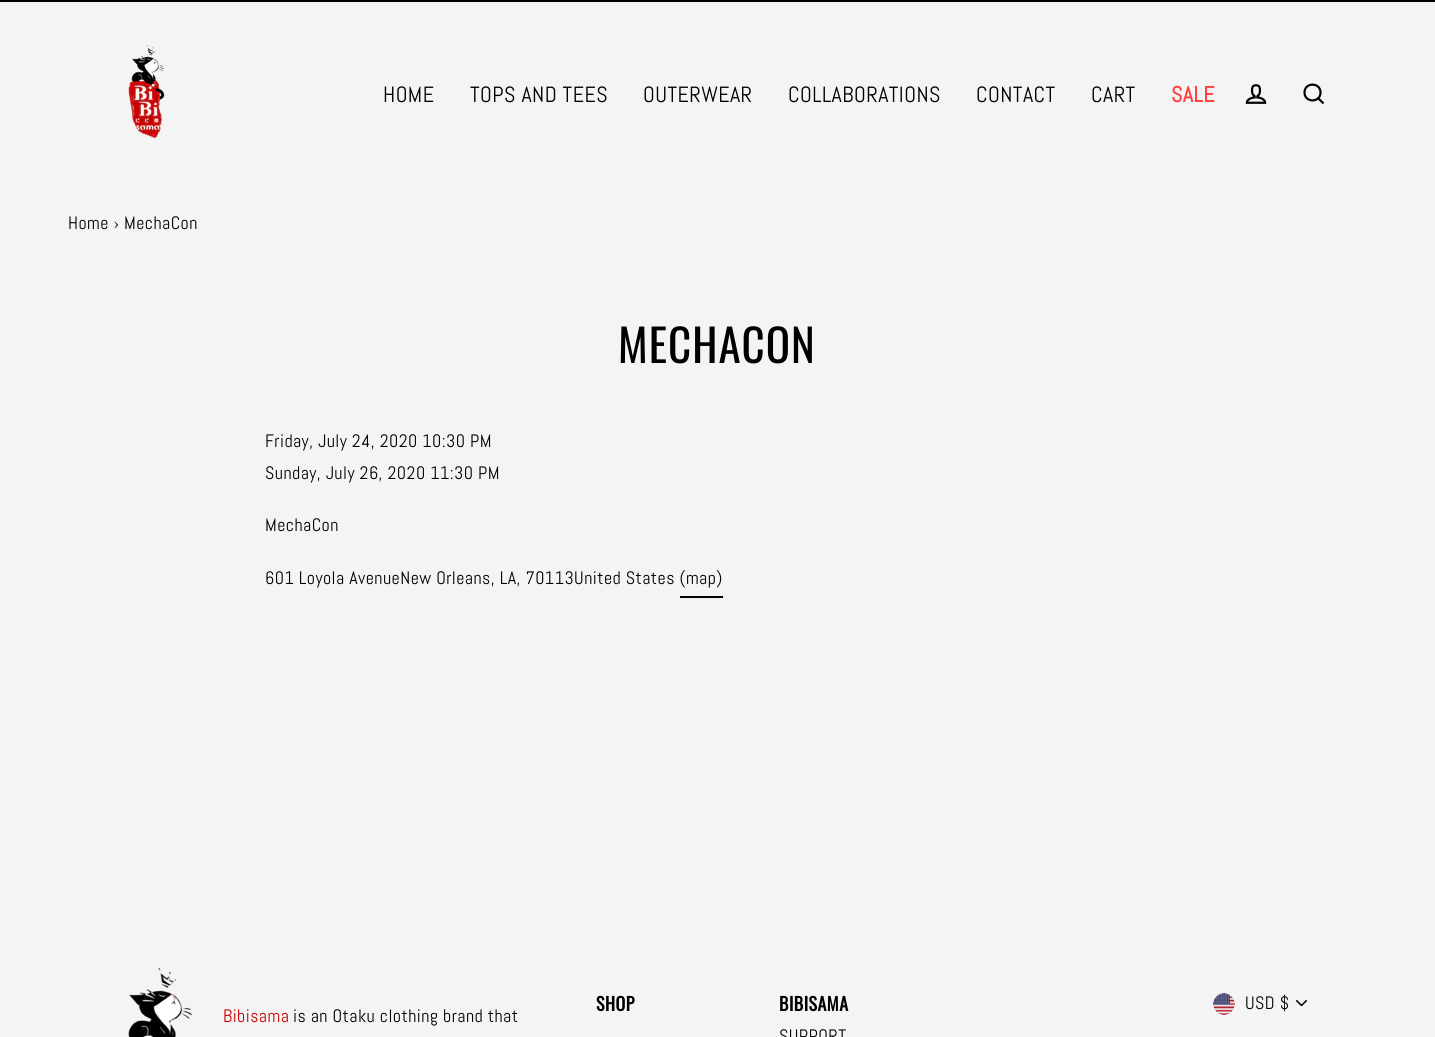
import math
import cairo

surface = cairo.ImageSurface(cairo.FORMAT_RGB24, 1435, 1037)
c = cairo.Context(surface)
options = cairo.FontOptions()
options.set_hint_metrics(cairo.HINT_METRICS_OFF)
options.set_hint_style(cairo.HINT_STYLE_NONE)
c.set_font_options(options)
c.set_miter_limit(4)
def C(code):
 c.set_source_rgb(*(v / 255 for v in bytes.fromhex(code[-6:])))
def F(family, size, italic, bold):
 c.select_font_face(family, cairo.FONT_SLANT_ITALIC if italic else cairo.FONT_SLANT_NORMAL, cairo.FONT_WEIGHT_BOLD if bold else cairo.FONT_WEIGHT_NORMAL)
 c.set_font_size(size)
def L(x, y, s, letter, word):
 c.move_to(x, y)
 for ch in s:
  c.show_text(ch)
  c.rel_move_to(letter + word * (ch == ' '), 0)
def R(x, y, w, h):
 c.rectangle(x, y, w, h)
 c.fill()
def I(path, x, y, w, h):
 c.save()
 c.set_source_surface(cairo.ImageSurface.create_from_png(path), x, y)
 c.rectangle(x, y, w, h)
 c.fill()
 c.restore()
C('f4f4f4')
c.paint()
C('000000')
R(0,0,1435,2)
I('1.png',128,45,37,93)
F('Abel',22,0,0)
L(383,102,'HOME',.45,0)
L(470,102,'TOPS AND TEES',.45,0)
L(643,102,'OUTERWEAR',.45,0)
L(788,102,'COLLABORATIONS',.45,0)
L(976,102,'CONTACT',.45,0)
L(1091,102,'CART',.45,0)
F('Abel',22,0,1)
C('ff4140')
L(1171,102,'SALE',.45,0)
I('2.png',1245,84,22,20)
c.new_path()
c.move_to(1320.5,92.5)
c.curve_to(1320.5,103,1304.5,103,1304.5,92.5)
c.curve_to(1304.5,82,1320.5,82,1320.5,92.5)
c.close_path()
c.move_to(1323.5,103.5)
c.line_to(1318.5,98.5)
C('000000')
c.set_line_width(2.2)
c.stroke()
F('Abel',18,0,0)
L(68,229,'Home › MechaCon',.45,0)
F('Oswald',45,0,0)
L(618,363,'MECHACON',1,0)
F('Abel',18,0,0)
L(265,447,'Friday, July 24, 2020 10:30 PM',.45,0)
L(265,479,'Sunday, July 26, 2020 11:30 PM',.45,0)
L(265,531,'MechaCon',.45,0)
L(265,584,'601 Loyola AvenueNew Orleans, LA, 70113United States (map)',.45,0)
R(680,596,43,2)
I('3.png',128,967,65,70)
C('c80000')
L(223,1022,'Bibisama',.45,0)
C('000000')
L(293,1022,'is an Otaku clothing brand that',.45,0)
F('Oswald',18,0,1)
L(596,1011,'SHOP',.45,0)
L(779,1011,'BIBISAMA',.45,0)
F('Abel',18,0,0)
L(779,1042,'SUPPORT',.45,0)
I('4.png',1296,1000,11,6)
I('5.png',1213,993,22,22)
L(1245,1009,'USD $',.45,0)
surface.write_to_png('o.png')
